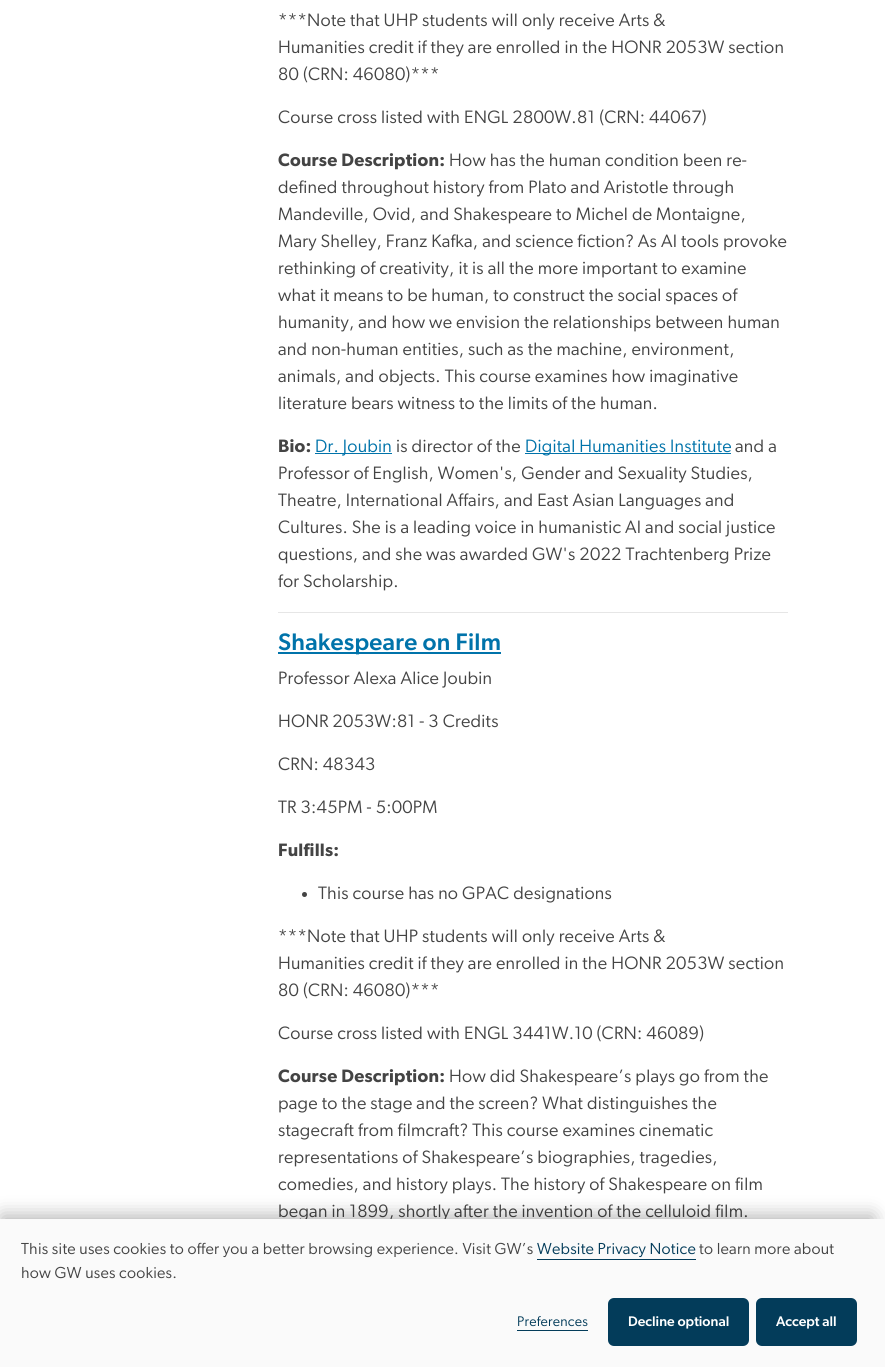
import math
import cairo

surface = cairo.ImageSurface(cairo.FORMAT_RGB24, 885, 1367)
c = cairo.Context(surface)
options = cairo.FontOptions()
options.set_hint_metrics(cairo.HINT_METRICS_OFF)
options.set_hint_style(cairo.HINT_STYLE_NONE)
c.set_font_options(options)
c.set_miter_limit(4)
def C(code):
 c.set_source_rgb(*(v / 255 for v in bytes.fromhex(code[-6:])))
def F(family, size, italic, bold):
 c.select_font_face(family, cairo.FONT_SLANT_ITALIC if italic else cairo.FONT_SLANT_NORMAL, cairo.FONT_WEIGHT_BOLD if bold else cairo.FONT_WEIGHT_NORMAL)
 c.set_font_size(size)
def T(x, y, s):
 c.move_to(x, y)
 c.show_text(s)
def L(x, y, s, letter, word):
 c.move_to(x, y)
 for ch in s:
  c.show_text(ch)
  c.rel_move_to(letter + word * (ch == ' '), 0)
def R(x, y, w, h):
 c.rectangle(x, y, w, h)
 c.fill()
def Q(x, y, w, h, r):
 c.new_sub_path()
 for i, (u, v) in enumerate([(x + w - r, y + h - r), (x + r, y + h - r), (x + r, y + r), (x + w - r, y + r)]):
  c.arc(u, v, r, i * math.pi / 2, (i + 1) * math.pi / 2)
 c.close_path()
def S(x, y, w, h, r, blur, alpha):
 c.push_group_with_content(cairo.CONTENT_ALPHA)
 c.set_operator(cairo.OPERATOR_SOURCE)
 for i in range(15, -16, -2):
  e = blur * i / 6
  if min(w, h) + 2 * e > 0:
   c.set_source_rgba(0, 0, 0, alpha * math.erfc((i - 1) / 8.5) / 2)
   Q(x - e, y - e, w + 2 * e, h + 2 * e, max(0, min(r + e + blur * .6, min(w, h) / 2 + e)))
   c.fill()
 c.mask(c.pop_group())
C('ffffff')
c.paint()
F('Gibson',18,0,0)
C('444444')
L(278,26,'***Note that UHP students will only receive Arts &',.25,0)
L(278,53,'Humanities credit if they are enrolled in the HONR 2053W section',.25,0)
L(278,80,'80 (CRN: 46080)***',.25,0)
L(278,123,'Course cross listed with ENGL 2800W.81 (CRN: 44067)',.25,0)
F('Gibson SemiBold',18,0,0)
L(278,166,'Course Description:',.25,0)
F('Gibson',18,0,0)
L(449,166,'How has the human condition been re-',.25,0)
L(278,193,'defined throughout history from Plato and Aristotle through',.25,0)
L(278,220,'Mandeville, Ovid, and Shakespeare to Michel de Montaigne,',.25,0)
L(278,247,'Mary Shelley, Franz Kafka, and science fiction? As AI tools provoke',.25,0)
L(278,274,'rethinking of creativity, it is all the more important to examine',.25,0)
L(278,301,'what it means to be human, to construct the social spaces of',.25,0)
L(278,328,'humanity, and how we envision the relationships between human',.25,0)
L(278,355,'and non-human entities, such as the machine, environment,',.25,0)
L(278,382,'animals, and objects. This course examines how imaginative',.25,0)
L(278,409,'literature bears witness to the limits of the human.',.25,0)
F('Gibson SemiBold',18,0,0)
L(278,452,'Bio:',.25,0)
C('0073aa')
R(315,453,77,1)
F('Gibson',18,0,0)
L(315,452,'Dr. Joubin',.25,0)
C('444444')
L(396,452,'is director of the',.25,0)
C('0073aa')
R(525,453,206,1)
L(525,452,'Digital Humanities Institute',.25,0)
C('444444')
L(735,452,'and a',.25,0)
L(278,479,'Professor of English, Women\'s, Gender and Sexuality Studies,',.25,0)
L(278,506,'Theatre, International Affairs, and East Asian Languages and',.25,0)
L(278,533,'Cultures. She is a leading voice in humanistic AI and social justice',.25,0)
L(278,560,'questions, and she was awarded GW\'s 2022 Trachtenberg Prize',.25,0)
L(278,587,'for Scholarship.',.25,0)
C('e6e6e6')
R(278,612,510,1)
C('0073aa')
R(278,652,223,2)
F('Gibson Medium',24,0,0)
L(278,650,'Shakespeare on Film',.25,0)
F('Gibson',18,0,0)
C('444444')
L(278,684,'Professor Alexa Alice Joubin',.25,0)
L(278,727,'HONR 2053W:81 - 3 Credits',.25,0)
L(278,770,'CRN: 48343',.25,0)
L(278,813,'TR 3:45PM - 5:00PM',.25,0)
F('Gibson SemiBold',18,0,0)
L(278,856,'Fulfills:',.25,0)
c.new_path()
c.arc(304.5,894.5,2.5,0,2 * math.pi)
c.fill()
F('Gibson',18,0,0)
L(318,899,'This course has no GPAC designations',.25,0)
L(278,942,'***Note that UHP students will only receive Arts &',.25,0)
L(278,969,'Humanities credit if they are enrolled in the HONR 2053W section',.25,0)
L(278,996,'80 (CRN: 46080)***',.25,0)
L(278,1039,'Course cross listed with ENGL 3441W.10 (CRN: 46089)',.25,0)
F('Gibson SemiBold',18,0,0)
L(278,1082,'Course Description:',.25,0)
F('Gibson',18,0,0)
L(449,1082,'How did Shakespeare’s plays go from the',.25,0)
L(278,1109,'page to the stage and the screen? What distinguishes the',.25,0)
L(278,1136,'stagecraft from filmcraft? This course examines cinematic',.25,0)
L(278,1163,'representations of Shakespeare’s biographies, tragedies,',.25,0)
L(278,1190,'comedies, and history plays. The history of Shakespeare on film',.25,0)
L(278,1217,'began in 1899, shortly after the invention of the celluloid film.',.25,0)
C('050505')
S(2,1216,871,134,0,9.5,.32)
C('fafafa')
R(0,1219,885,148)
F('Gibson',16,0,0)
C('444444')
L(21,1254,'This site uses cookies to offer you a better browsing experience. Visit GW’s',.25,0)
C('033c5a')
R(537,1259,159,1)
L(537,1254,'Website Privacy Notice',.25,0)
C('444444')
L(699,1254,'to learn more about',.25,0)
L(21,1278,'how GW uses cookies.',.25,0)
C('033c5a')
R(517,1330,71,1)
F('Gibson',14,0,0)
L(517,1326,'Preferences',.25,0)
Q(609.5,1299.5,138,45,4.5)
c.fill_preserve()
c.set_line_width(3)
c.stroke()
F('Gibson Medium',14,0,0)
C('ffffff')
T(628,1326,'Decline optional')
C('033c5a')
Q(757.5,1299.5,98,45,4.5)
c.fill_preserve()
c.stroke()
C('ffffff')
T(776,1326,'Accept all')
surface.write_to_png('o.png')
